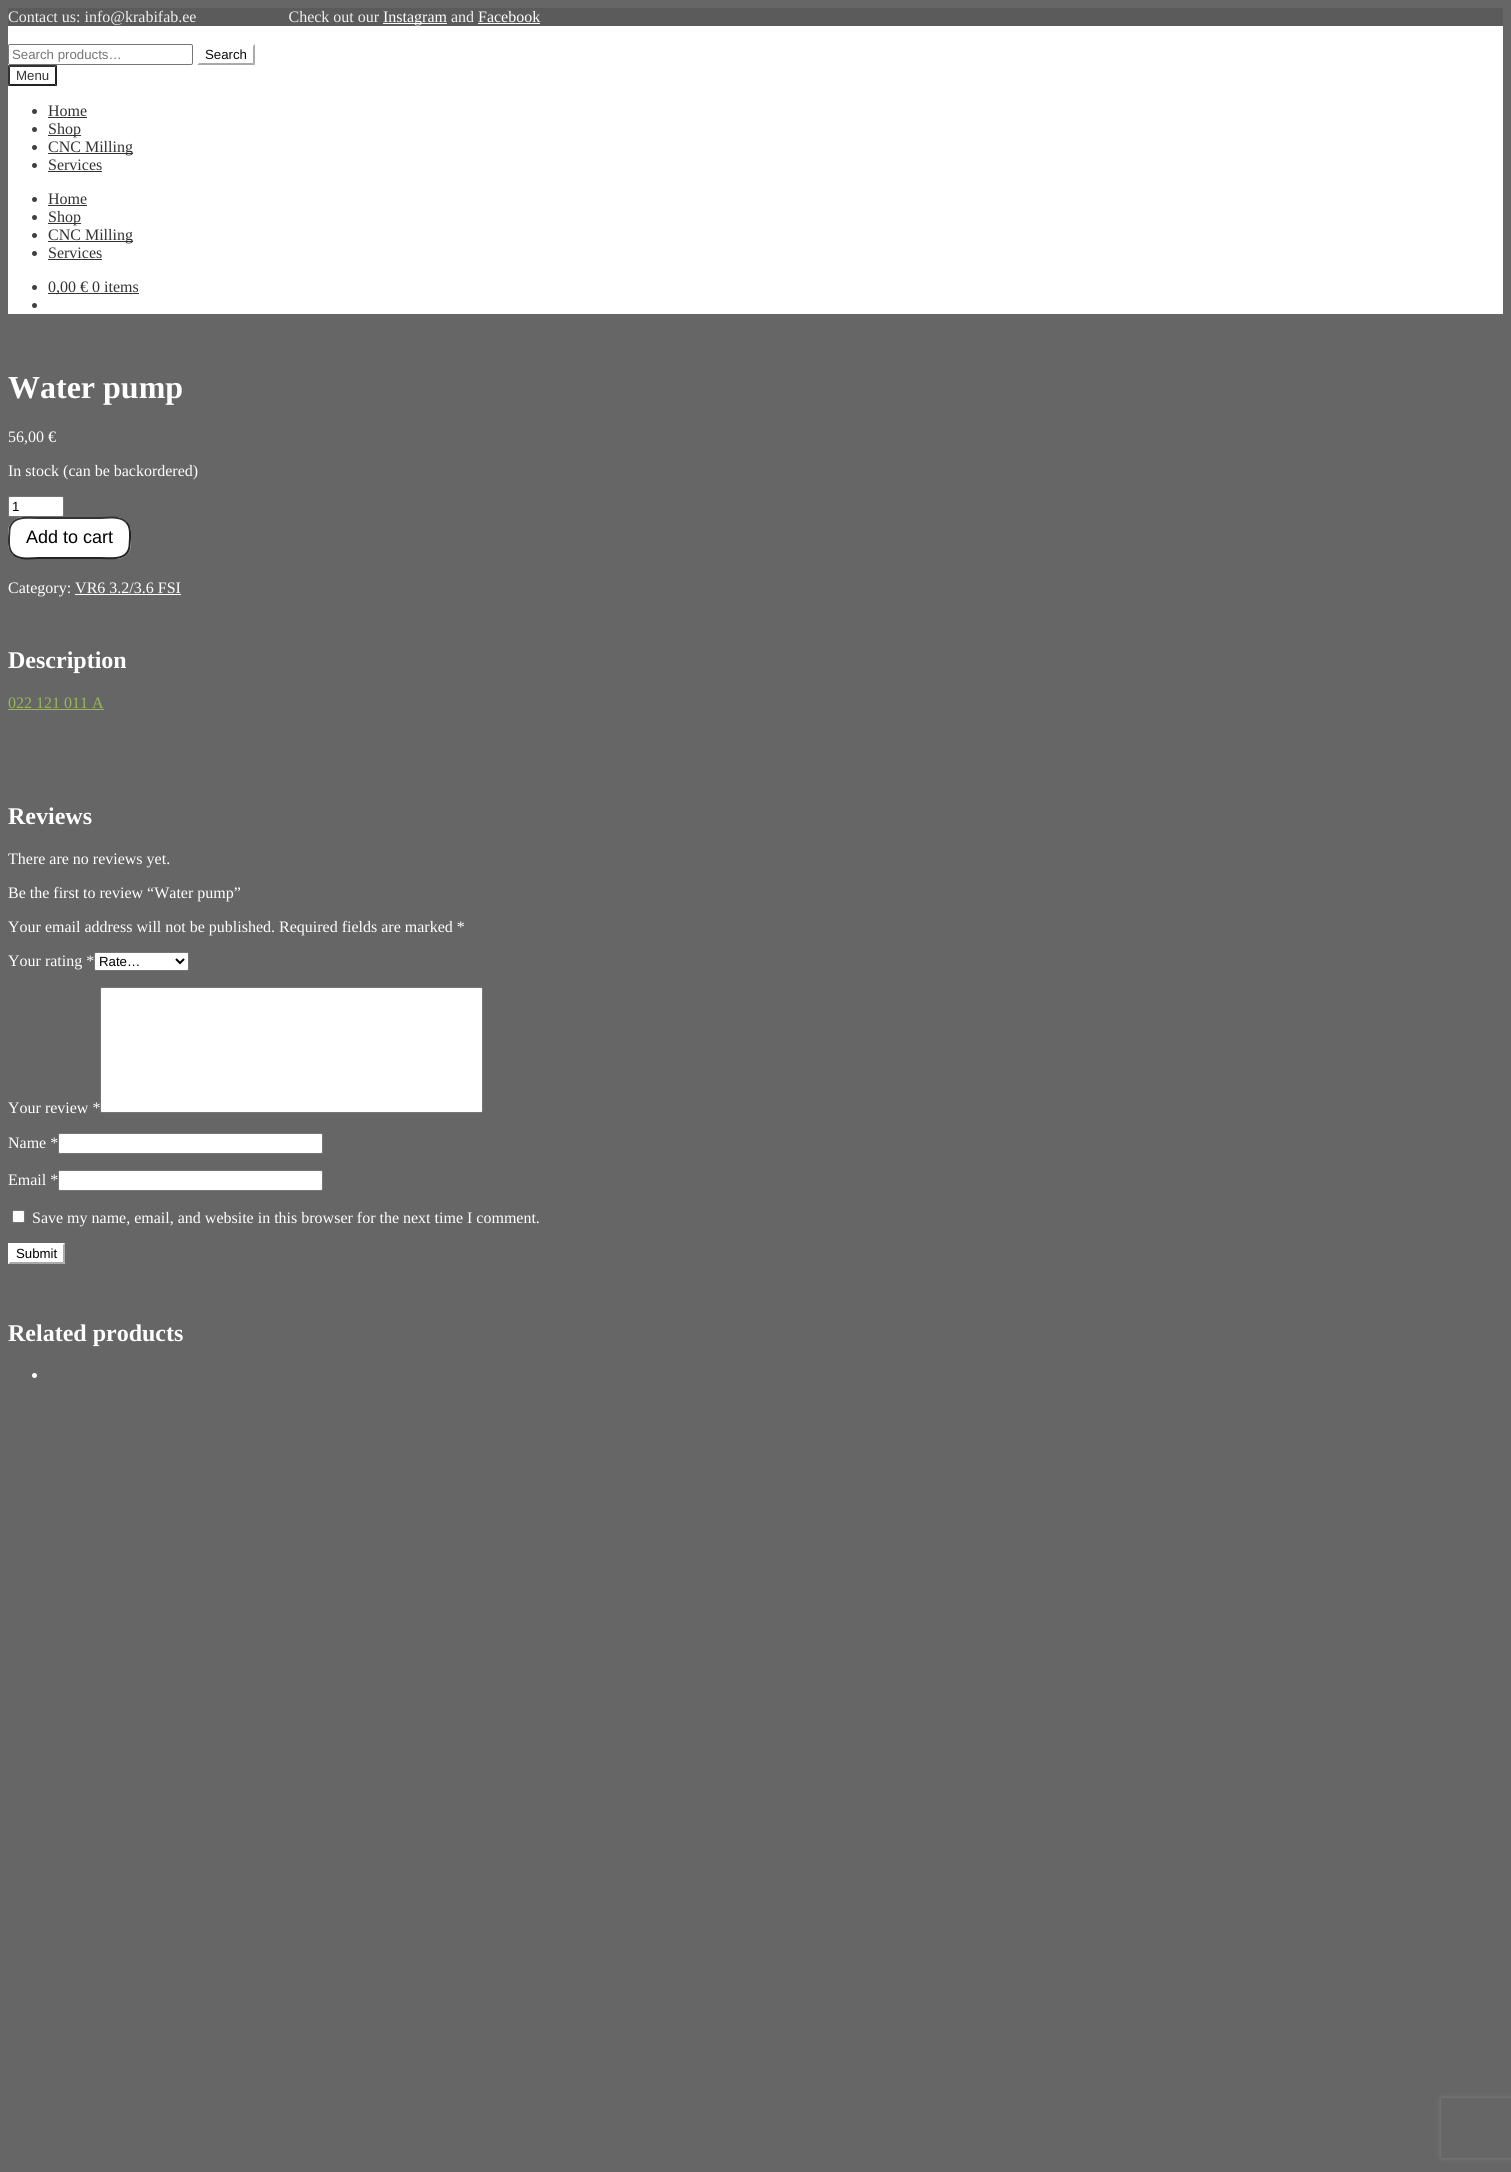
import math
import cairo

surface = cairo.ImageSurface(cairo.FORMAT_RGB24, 1511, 2172)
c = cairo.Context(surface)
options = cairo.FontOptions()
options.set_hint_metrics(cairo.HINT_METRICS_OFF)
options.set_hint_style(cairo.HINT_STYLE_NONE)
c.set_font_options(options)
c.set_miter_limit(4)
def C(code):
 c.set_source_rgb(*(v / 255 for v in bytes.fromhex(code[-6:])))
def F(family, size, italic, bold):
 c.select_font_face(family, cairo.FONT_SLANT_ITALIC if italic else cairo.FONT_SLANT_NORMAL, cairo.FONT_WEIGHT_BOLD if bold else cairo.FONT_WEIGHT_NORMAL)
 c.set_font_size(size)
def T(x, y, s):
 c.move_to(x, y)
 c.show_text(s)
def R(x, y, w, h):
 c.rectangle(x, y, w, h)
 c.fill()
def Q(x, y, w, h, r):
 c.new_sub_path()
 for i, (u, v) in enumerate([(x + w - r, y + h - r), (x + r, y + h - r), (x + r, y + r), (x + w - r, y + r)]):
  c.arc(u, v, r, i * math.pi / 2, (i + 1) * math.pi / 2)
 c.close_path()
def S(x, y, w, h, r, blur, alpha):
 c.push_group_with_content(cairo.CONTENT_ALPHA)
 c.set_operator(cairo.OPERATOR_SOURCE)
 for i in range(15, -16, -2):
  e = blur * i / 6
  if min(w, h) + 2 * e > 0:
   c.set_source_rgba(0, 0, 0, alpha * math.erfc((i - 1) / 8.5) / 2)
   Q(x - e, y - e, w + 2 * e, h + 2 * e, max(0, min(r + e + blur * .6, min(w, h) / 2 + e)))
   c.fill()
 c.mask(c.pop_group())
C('666666')
c.paint()
C('5b5b5b')
R(8,8,1495,18)
F('Liberation Serif',16,0,0)
C('efefef')
T(8,22,'Contact us: info@krabifab.ee                       Check out our')
C('ffffff')
R(383,23,64,1)
T(383,22,'Instagram')
C('efefef')
T(451,22,'and')
C('ffffff')
T(478,22,'Facebook')
R(478,23,62,1)
R(8,26,1495,288)
Q(8.5,44.5,184,20,1.5)
C('767676')
c.set_line_width(1)
c.stroke()
F('Liberation Sans',13.25,0,0)
C('757575')
T(12,59,'Search products…')
C('aaaaaa')
c.new_path()
c.move_to(255,44)
c.line_to(255,65)
c.line_to(253,63)
c.line_to(253,46)
c.close_path()
c.fill()
c.new_path()
c.move_to(255,65)
c.line_to(197,65)
c.line_to(199,63)
c.line_to(253,63)
c.close_path()
c.fill()
C('ffffff')
c.new_path()
c.move_to(197,65)
c.line_to(197,44)
c.line_to(199,46)
c.line_to(199,63)
c.close_path()
c.fill()
C('0a0a0a')
T(205,59,'Search')
C('333333')
c.new_path()
c.move_to(8,65)
c.line_to(57,65)
c.line_to(55,67)
c.line_to(10,67)
c.close_path()
c.fill()
C('222222')
c.new_path()
c.move_to(57,65)
c.line_to(57,86)
c.line_to(55,84)
c.line_to(55,67)
c.close_path()
c.fill()
c.new_path()
c.move_to(57,86)
c.line_to(8,86)
c.line_to(10,84)
c.line_to(55,84)
c.close_path()
c.fill()
C('333333')
c.new_path()
c.move_to(8,86)
c.line_to(8,65)
c.line_to(10,67)
c.line_to(10,84)
c.close_path()
c.fill()
T(16,80,'Menu')
C('404040')
c.new_path()
c.arc(34.5,111.5,2.5,0,2 * math.pi)
c.fill()
F('Liberation Serif',16,0,0)
C('333333')
T(48,116,'Home')
R(48,117,39,1)
C('404040')
c.new_path()
c.arc(34.5,129.5,2.5,0,2 * math.pi)
c.fill()
C('333333')
R(48,135,33,1)
T(48,134,'Shop')
C('404040')
c.new_path()
c.arc(34.5,147.5,2.5,0,2 * math.pi)
c.fill()
C('333333')
R(48,153,85,1)
T(48,152,'CNC Milling')
C('404040')
c.new_path()
c.arc(34.5,165.5,2.5,0,2 * math.pi)
c.fill()
C('333333')
T(48,170,'Services')
R(48,171,54,1)
C('404040')
c.new_path()
c.arc(34.5,199.5,2.5,0,2 * math.pi)
c.fill()
C('333333')
T(48,204,'Home')
R(48,205,39,1)
C('404040')
c.new_path()
c.arc(34.5,217.5,2.5,0,2 * math.pi)
c.fill()
C('333333')
R(48,223,33,1)
T(48,222,'Shop')
C('404040')
c.new_path()
c.arc(34.5,235.5,2.5,0,2 * math.pi)
c.fill()
C('333333')
R(48,241,85,1)
T(48,240,'CNC Milling')
C('404040')
c.new_path()
c.arc(34.5,253.5,2.5,0,2 * math.pi)
c.fill()
C('333333')
T(48,258,'Services')
R(48,259,54,1)
C('404040')
c.new_path()
c.arc(34.5,287.5,2.5,0,2 * math.pi)
c.fill()
C('333333')
R(48,293,91,1)
T(48,292,'0,00 € 0 items')
C('404040')
c.new_path()
c.arc(34.5,305.5,2.5,0,2 * math.pi)
c.fill()
F('Liberation Serif',32,0,1)
C('ffffff')
T(8,398,'Water pump')
F('Liberation Serif',16,0,0)
T(8,442,'56,00 €')
T(8,476,'In stock (can be backordered)')
Q(8.5,496.5,55,20,1.5)
c.fill_preserve()
C('767676')
c.stroke()
F('Liberation Sans',13.25,0,0)
C('000000')
T(12,511,'1')
C('ffffff')
Q(8,517,123,42,15)
c.fill()
c.new_path()
c.move_to(126,522)
c.curve_to(130.5,526.5,130,532,130,538)
c.line_to(129.5,546.5)
c.curve_to(127,561,111,558,100.5,558)
c.line_to(38.5,558)
c.curve_to(31,558,19.5,560.5,13,554)
C('222222')
c.set_line_width(2)
c.stroke()
c.new_path()
c.move_to(13,554)
c.curve_to(8.5,549.5,9,544,9,538)
c.line_to(9.5,529.5)
c.curve_to(12,515,28,518,38.5,518)
c.line_to(100.5,518)
c.curve_to(108,518,119.5,515.5,126,522)
C('333333')
c.stroke()
F('Liberation Sans',18,0,0)
C('000000')
T(26,543,'Add to cart')
F('Liberation Serif',16,0,0)
C('ffffff')
T(8,593,'Category: VR6 3.2/3.6 FSI')
R(75,594,106,1)
F('Liberation Serif',24,0,1)
T(8,668,'Description')
F('Liberation Serif',16,0,0)
C('98b756')
T(8,708,'022 121 011 A')
R(8,709,96,1)
F('Liberation Serif',24,0,1)
C('ffffff')
T(8,824,'Reviews')
F('Liberation Serif',16,0,0)
T(8,864,'There are no reviews yet.')
T(8,898,'Be the first to review “Water pump”')
T(8,932,'Your email address will not be published. Required fields are marked *')
T(8,966,'Your rating *')
Q(94.5,952.5,94,18,1.5)
c.fill_preserve()
C('767676')
c.set_line_width(1)
c.stroke()
c.new_path()
c.move_to(176,959)
c.line_to(180,963)
c.line_to(184,959)
C('000000')
c.set_line_width(2)
c.stroke()
F('Liberation Sans',13.25,0,0)
T(99,966,'Rate…')
F('Liberation Serif',16,0,0)
C('ffffff')
T(8,1113,'Your review *')
Q(100.5,987.5,382,125,1.5)
c.fill_preserve()
C('767676')
c.set_line_width(1)
c.stroke()
C('ffffff')
T(8,1148,'Name *')
Q(58.5,1133.5,264,20,1.5)
c.fill_preserve()
C('767676')
c.stroke()
C('ffffff')
T(8,1185,'Email *')
Q(58.5,1170.5,264,20,1.5)
c.fill_preserve()
C('767676')
c.stroke()
C('ffffff')
Q(12.5,1210.5,12,12,1.5)
c.fill_preserve()
C('767676')
c.stroke()
C('ffffff')
T(32,1223,'Save my name, email, and website in this browser for the next time I comment.')
R(8,1243,57,21)
C('aaaaaa')
c.new_path()
c.move_to(65,1243)
c.line_to(65,1264)
c.line_to(63,1262)
c.line_to(63,1245)
c.close_path()
c.fill()
c.new_path()
c.move_to(65,1264)
c.line_to(8,1264)
c.line_to(10,1262)
c.line_to(63,1262)
c.close_path()
c.fill()
C('ffffff')
c.new_path()
c.move_to(8,1264)
c.line_to(8,1243)
c.line_to(10,1245)
c.line_to(10,1262)
c.close_path()
c.fill()
F('Liberation Sans',13.25,0,0)
C('000000')
T(16,1258,'Submit')
F('Liberation Serif',24,0,1)
C('ffffff')
T(8,1341,'Related products')
c.new_path()
c.arc(34.5,1375.5,2.5,0,2 * math.pi)
c.fill()
c.save()
c.set_fill_rule(cairo.FILL_RULE_EVEN_ODD)
c.new_path()
c.move_to(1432,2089)
c.line_to(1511,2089)
c.line_to(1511,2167)
c.line_to(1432,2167)
c.close_path()
c.move_to(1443,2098)
c.line_to(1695,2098)
c.curve_to(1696,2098,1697,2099,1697,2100)
c.line_to(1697,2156)
c.curve_to(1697,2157,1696,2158,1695,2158)
c.line_to(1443,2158)
c.curve_to(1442,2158,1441,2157,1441,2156)
c.line_to(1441,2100)
c.curve_to(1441,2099,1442,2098,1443,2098)
c.close_path()
c.clip()
C('808080')
S(1441,2098,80,60,2,2.5,1)
c.restore()
surface.write_to_png('o.png')
